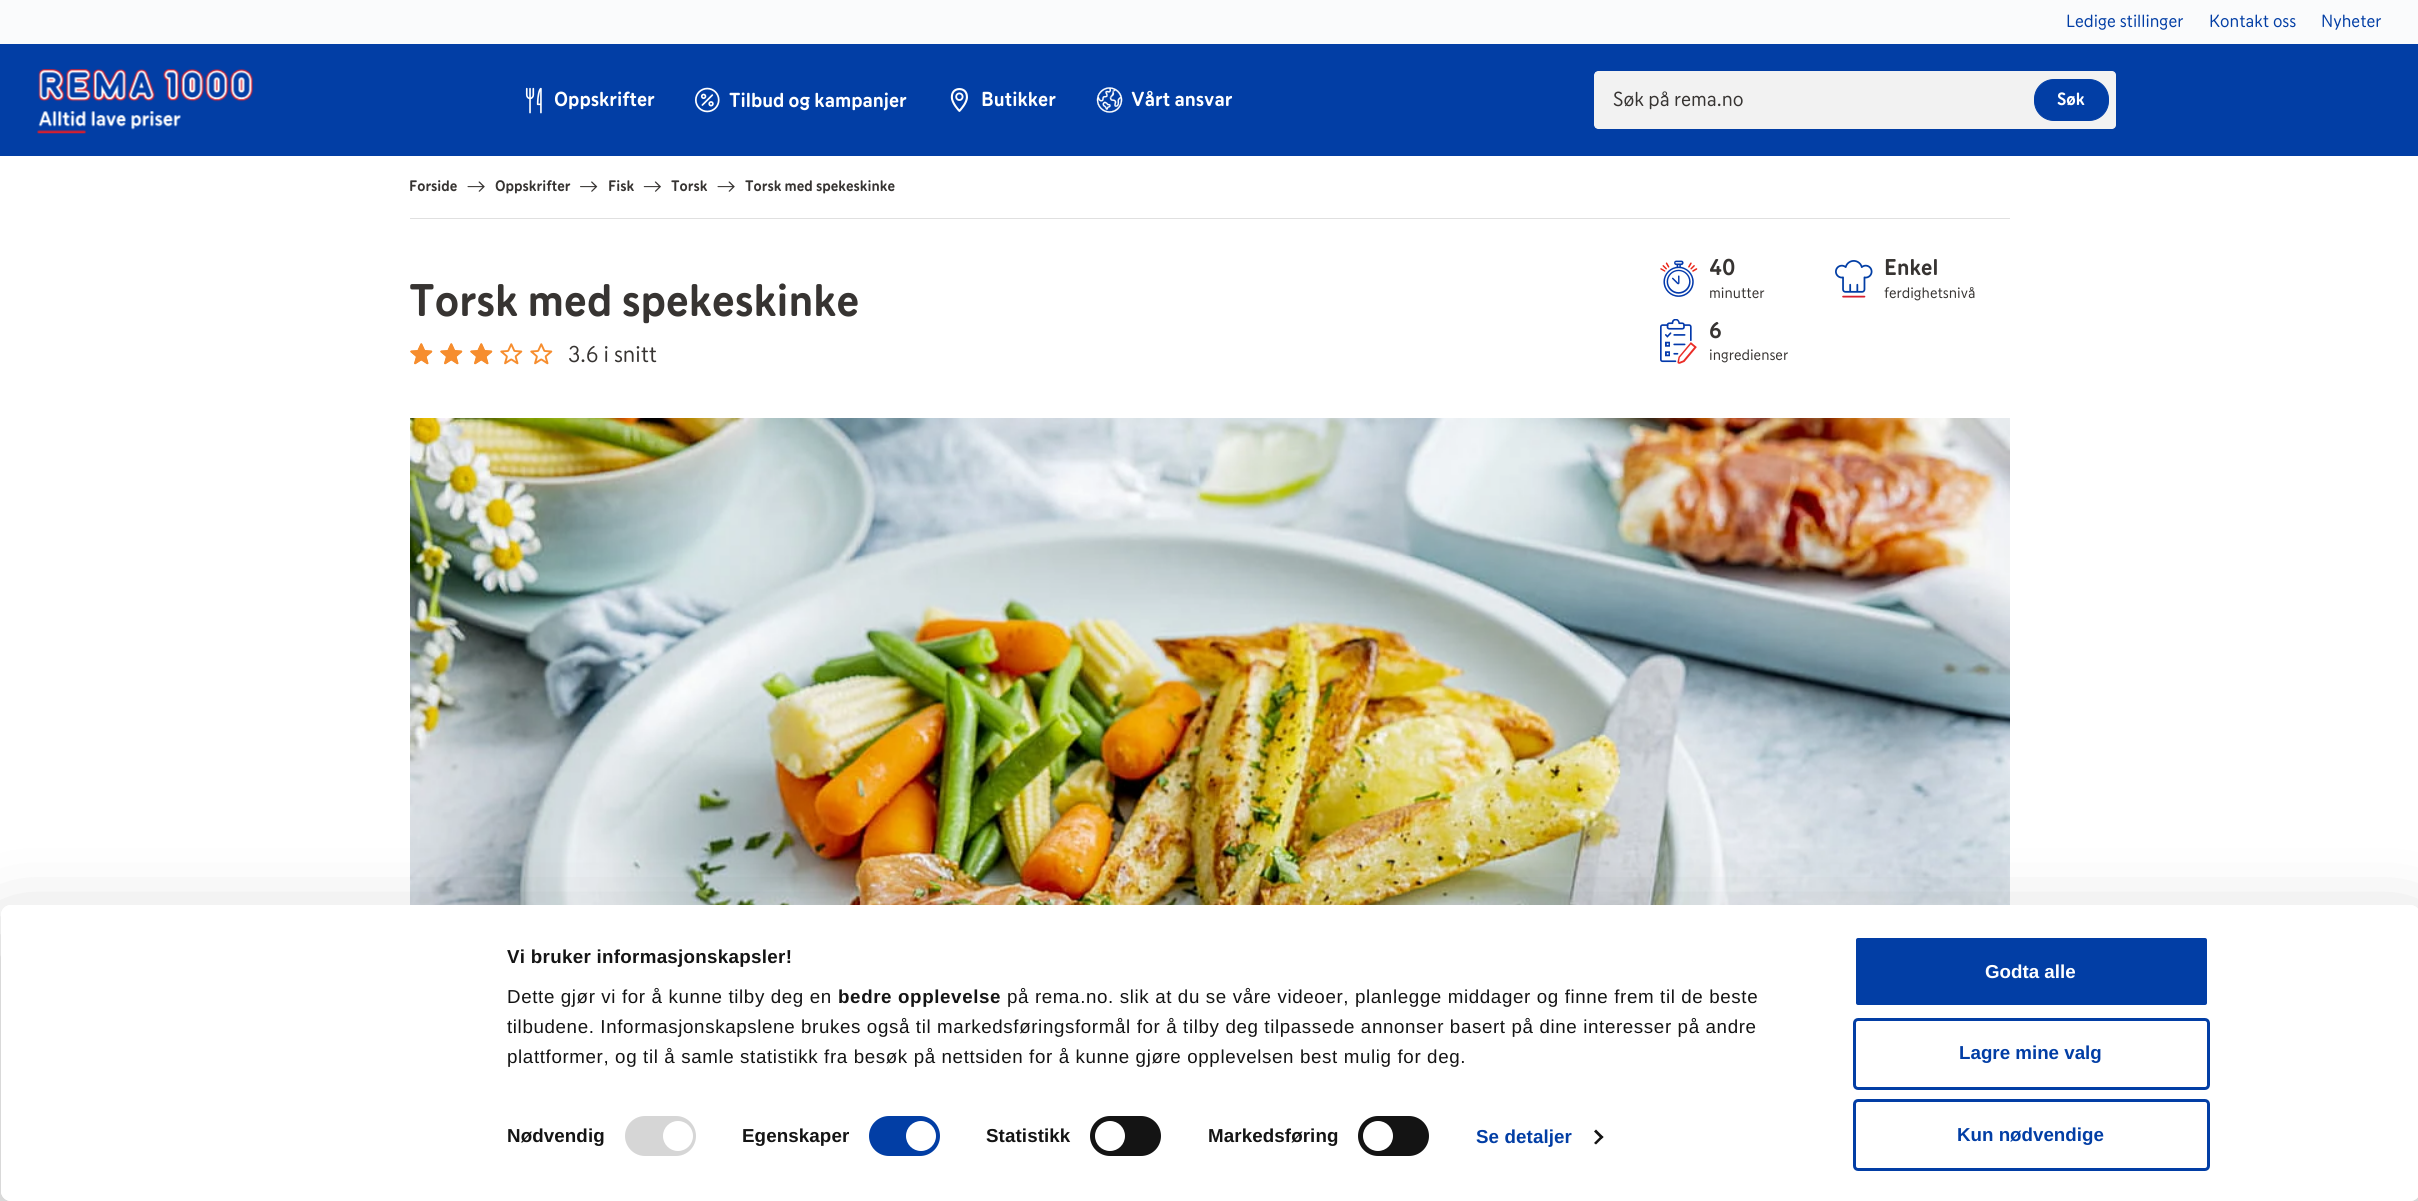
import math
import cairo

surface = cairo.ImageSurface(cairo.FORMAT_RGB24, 2418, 1201)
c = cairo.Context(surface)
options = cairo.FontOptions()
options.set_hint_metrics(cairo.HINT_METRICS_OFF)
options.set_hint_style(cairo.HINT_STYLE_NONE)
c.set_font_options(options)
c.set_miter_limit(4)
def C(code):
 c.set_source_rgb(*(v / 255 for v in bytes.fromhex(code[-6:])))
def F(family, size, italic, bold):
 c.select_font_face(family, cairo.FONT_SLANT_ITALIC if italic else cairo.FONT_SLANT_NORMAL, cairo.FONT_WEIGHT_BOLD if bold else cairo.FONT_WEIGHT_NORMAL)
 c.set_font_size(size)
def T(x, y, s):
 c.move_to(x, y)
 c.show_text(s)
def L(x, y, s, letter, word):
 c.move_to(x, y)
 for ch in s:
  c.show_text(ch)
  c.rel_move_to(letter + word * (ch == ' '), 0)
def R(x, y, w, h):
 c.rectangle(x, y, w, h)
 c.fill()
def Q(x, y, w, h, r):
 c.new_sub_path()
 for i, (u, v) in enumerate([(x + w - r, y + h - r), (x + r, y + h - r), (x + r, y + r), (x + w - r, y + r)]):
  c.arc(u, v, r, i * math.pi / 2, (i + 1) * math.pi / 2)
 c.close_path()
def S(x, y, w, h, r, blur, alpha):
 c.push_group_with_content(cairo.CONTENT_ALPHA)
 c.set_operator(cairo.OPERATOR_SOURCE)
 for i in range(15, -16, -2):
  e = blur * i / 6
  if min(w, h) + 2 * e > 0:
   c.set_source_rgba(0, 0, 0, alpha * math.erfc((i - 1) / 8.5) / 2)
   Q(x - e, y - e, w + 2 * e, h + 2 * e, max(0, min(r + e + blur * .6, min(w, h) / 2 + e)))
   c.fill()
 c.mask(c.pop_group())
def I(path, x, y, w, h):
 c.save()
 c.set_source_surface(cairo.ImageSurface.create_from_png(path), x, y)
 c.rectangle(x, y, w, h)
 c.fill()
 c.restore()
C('ffffff')
c.paint()
C('fafbfc')
R(0,0,2418,44)
F('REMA',17.5,0,0)
C('023ea5')
T(2066,27,'Ledige stillinger')
T(2209,27,'Kontakt oss')
T(2321,27,'Nyheter')
R(0,44,2418,112)
I('1.png',37,69,216,65)
I('2.png',525,87,17,27)
F('REMA',20,0,1)
C('ffffff')
T(554,106,'Oppskrifter')
I('3.png',695,87,25,26)
T(729,107,'Tilbud og kampanjer')
I('4.png',950,88,18,24)
T(981,106,'Butikker')
I('5.png',1096,87,27,26)
T(1131,106,'Vårt ansvar')
C('f2f2f2')
Q(1594,71,522,58,4)
c.fill()
Q(1593.5,70.5,524,59,4.5)
C('023ea5')
c.set_line_width(1)
c.stroke()
F('REMA',20,0,0)
C('373432')
T(1613,106,'Søk på rema.no')
C('023ea5')
Q(2034.5,79.5,74,41,19.5)
c.fill_preserve()
c.stroke()
F('REMA',17.5,0,1)
C('ffffff')
T(2057,105,'Søk')
C('e0e0e0')
R(410,218,1600,1)
F('REMA',15,0,1)
C('373432')
T(409,191,'Forside')
I('6.png',467,181,18,11)
T(495,191,'Oppskrifter')
I('7.png',580,181,18,11)
T(608,191,'Fisk')
I('8.png',643,181,18,11)
T(671,191,'Torsk')
I('6.png',717,181,18,11)
T(745,191,'Torsk med spekeskinke')
F('REMA',45,0,1)
T(409,316,'Torsk med spekeskinke')
I('9.png',410,343,23,22)
I('9.png',440,343,23,22)
I('9.png',470,343,23,22)
I('10.png',500,343,23,22)
I('10.png',530,343,23,22)
F('REMA',22.5,0,0)
T(568,362,'3.6 i snitt')
I('11.png',1660,260,38,37)
F('REMA',22.5,0,1)
T(1709,275,'40')
F('REMA',15,0,0)
T(1709,298,'minutter')
I('12.png',1835,260,38,38)
F('REMA',22.5,0,1)
T(1884,275,'Enkel')
F('REMA',15,0,0)
T(1884,298,'ferdighetsnivå')
I('13.png',1660,319,37,45)
F('REMA',22.5,0,1)
T(1709,338,'6')
F('REMA',15,0,0)
T(1709,360,'ingredienser')
I('14.png',410,418,1600,487)
c.save()
c.set_fill_rule(cairo.FILL_RULE_EVEN_ODD)
c.new_path()
c.move_to(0,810)
c.line_to(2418,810)
c.line_to(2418,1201)
c.line_to(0,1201)
c.close_path()
c.move_to(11,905)
c.line_to(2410,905)
c.curve_to(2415.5,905,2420,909.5,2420,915)
c.line_to(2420,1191)
c.curve_to(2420,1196.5,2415.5,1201,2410,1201)
c.line_to(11,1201)
c.curve_to(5.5,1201,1,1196.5,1,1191)
c.line_to(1,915)
c.curve_to(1,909.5,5.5,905,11,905)
c.close_path()
c.clip()
C('000000')
S(1,943,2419,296,10,44,.3)
c.restore()
C('ffffff')
Q(1,905,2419,296,10)
c.fill()
F('Liberation Sans',18.75,0,1)
C('141414')
L(507,963,'Vi bruker informasjonskapsler!',.3,0)
F('Liberation Sans',18.75,0,0)
L(507,1003,'Dette gjør vi for å kunne tilby deg en',.62,0)
F('Liberation Sans',18.75,0,1)
L(838,1003,'bedre opplevelse',.62,0)
F('Liberation Sans',18.75,0,0)
L(1007,1003,'på rema.no. slik at du se våre videoer, planlegge middager og finne frem til de beste',.62,0)
L(507,1033,'tilbudene. Informasjonskapslene brukes også til markedsføringsformål for å tilby deg tilpassede annonser basert på dine interesser på andre',.62,0)
L(507,1063,'plattformer, og til å samle statistikk fra besøk på nettsiden for å kunne gjøre opplevelsen best mulig for deg.',.62,0)
F('Liberation Sans',18.75,0,1)
L(507,1142,'Nødvendig',.1,0)
C('d6d6d6')
Q(625,1116,71,40,20)
c.fill()
C('ffffff')
c.arc(678,1136,15,0,2 * math.pi)
c.fill()
C('141414')
L(742,1142,'Egenskaper',.1,0)
C('023ea5')
Q(869,1116,71,40,20)
c.fill()
C('ffffff')
c.arc(921,1136,15,0,2 * math.pi)
c.fill()
C('141414')
L(986,1142,'Statistikk',.1,0)
Q(1090,1116,71,40,20)
c.fill()
C('ffffff')
c.arc(1110,1136,15,0,2 * math.pi)
c.fill()
C('141414')
L(1208,1142,'Markedsføring',.1,0)
Q(1358,1116,71,40,20)
c.fill()
C('ffffff')
c.arc(1378,1136,15,0,2 * math.pi)
c.fill()
C('023ea5')
L(1476,1143,'Se detaljer',.1,0)
C('141414')
c.new_path()
c.move_to(1596,1129.5)
c.line_to(1603.5,1137)
c.line_to(1601.5,1139)
c.line_to(1594,1131.5)
c.close_path()
c.fill()
c.new_path()
c.move_to(1601.5,1135.5)
c.line_to(1603.5,1137)
c.line_to(1596,1144.5)
c.line_to(1594,1143)
c.close_path()
c.fill()
C('023ea5')
Q(1854.5,936.5,354,70,3.5)
c.fill_preserve()
C('ffffff')
c.set_line_width(3)
c.stroke()
T(1985,978,'Godta alle')
Q(1854.5,1019.5,354,69,3.5)
C('023ea5')
c.stroke()
T(1959,1059,'Lagre mine valg')
Q(1854.5,1100.5,354,69,3.5)
c.stroke()
T(1957,1141,'Kun nødvendige')
surface.write_to_png('o.png')
